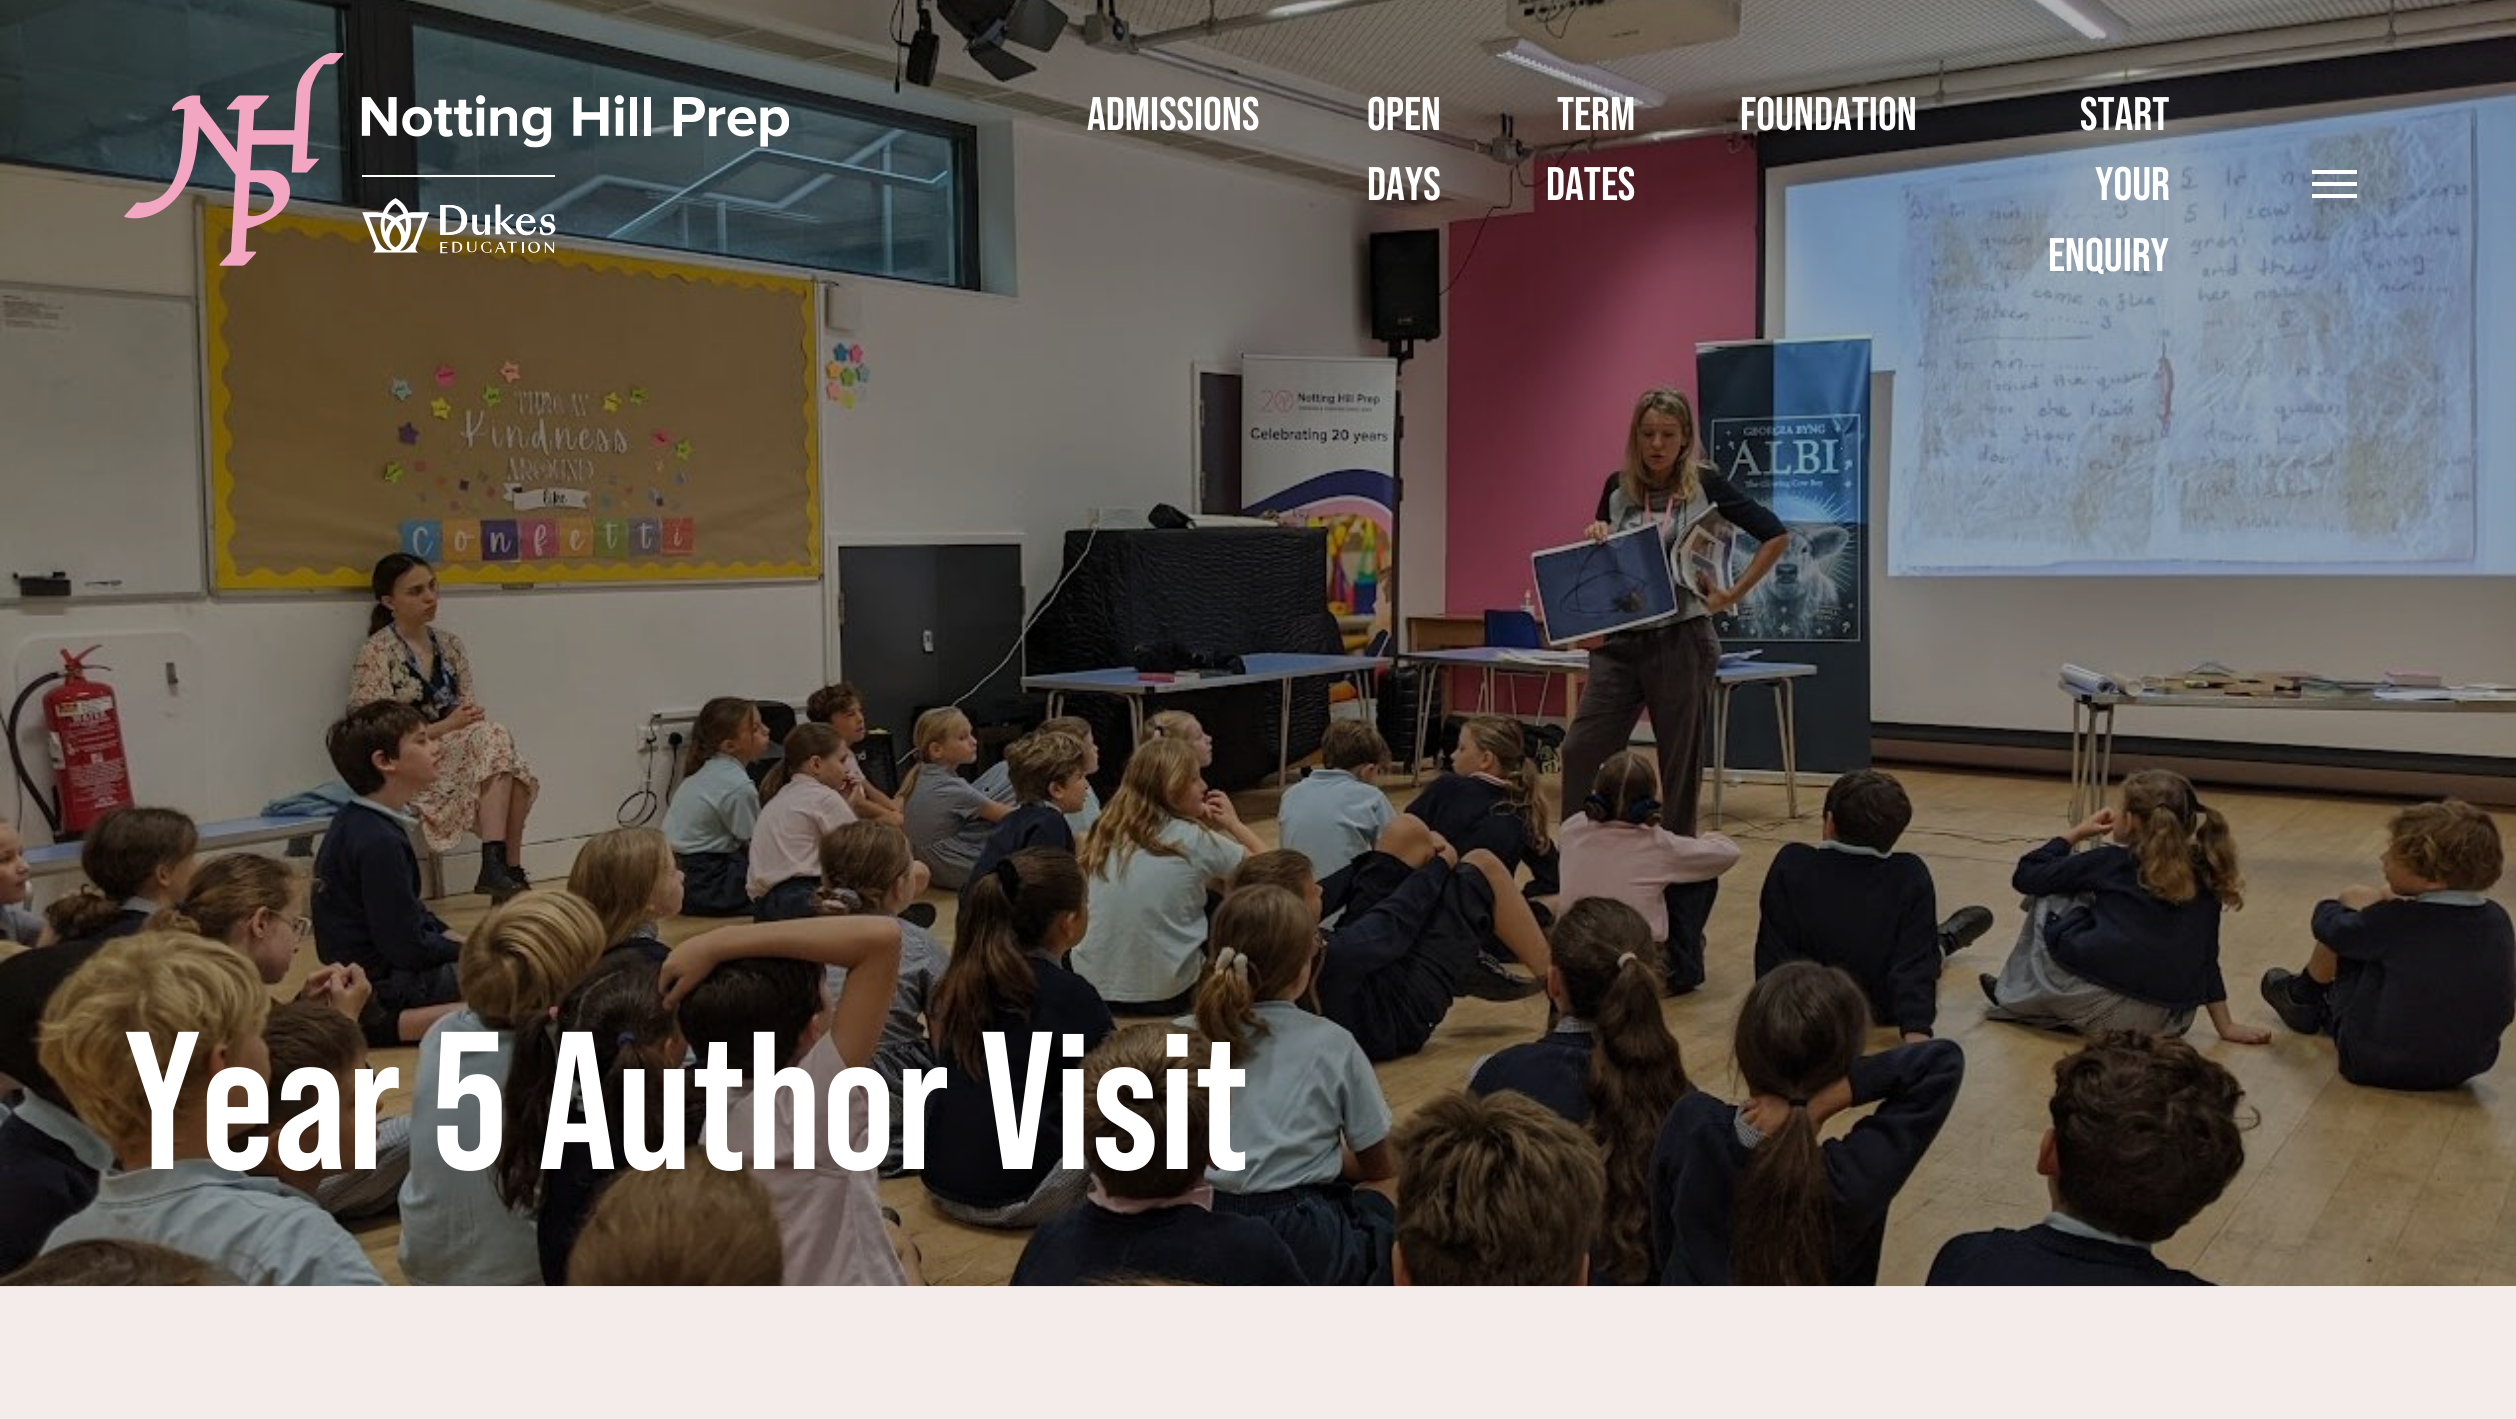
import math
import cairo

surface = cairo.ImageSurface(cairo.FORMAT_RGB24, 2516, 1419)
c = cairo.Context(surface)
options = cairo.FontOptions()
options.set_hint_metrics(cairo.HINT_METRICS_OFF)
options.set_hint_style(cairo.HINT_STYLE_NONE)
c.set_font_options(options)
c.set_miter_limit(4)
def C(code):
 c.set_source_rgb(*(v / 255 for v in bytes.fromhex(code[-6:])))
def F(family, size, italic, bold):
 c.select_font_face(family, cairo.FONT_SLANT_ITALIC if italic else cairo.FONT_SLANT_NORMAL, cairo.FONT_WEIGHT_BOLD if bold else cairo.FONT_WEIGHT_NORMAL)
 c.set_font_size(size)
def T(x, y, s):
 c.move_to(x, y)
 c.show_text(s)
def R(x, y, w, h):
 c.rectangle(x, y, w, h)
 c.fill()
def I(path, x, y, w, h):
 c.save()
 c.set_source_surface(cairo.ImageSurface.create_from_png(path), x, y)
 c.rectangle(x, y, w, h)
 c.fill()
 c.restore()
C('f4eceb')
c.paint()
I('2.png',0,0,2516,1287)
I('1.png',124,53,665,213)
F('Bebas Neue',47,0,1)
C('ffffff')
T(1087,130,'ADMISSIONS')
T(1367,130,'OPEN')
T(1367,200,'DAYS')
T(1557,130,'TERM')
T(1546,200,'DATES')
T(1740,130,'FOUNDATION')
T(2080,130,'START')
T(2095,200,'YOUR')
T(2048,271,'ENQUIRY')
R(2312,182,45,4)
R(2312,170,45,4)
R(2312,194,45,4)
F('Bebas Neue',196,0,1)
T(124,1169,'Year 5 Author Visit')
surface.write_to_png('o.png')
